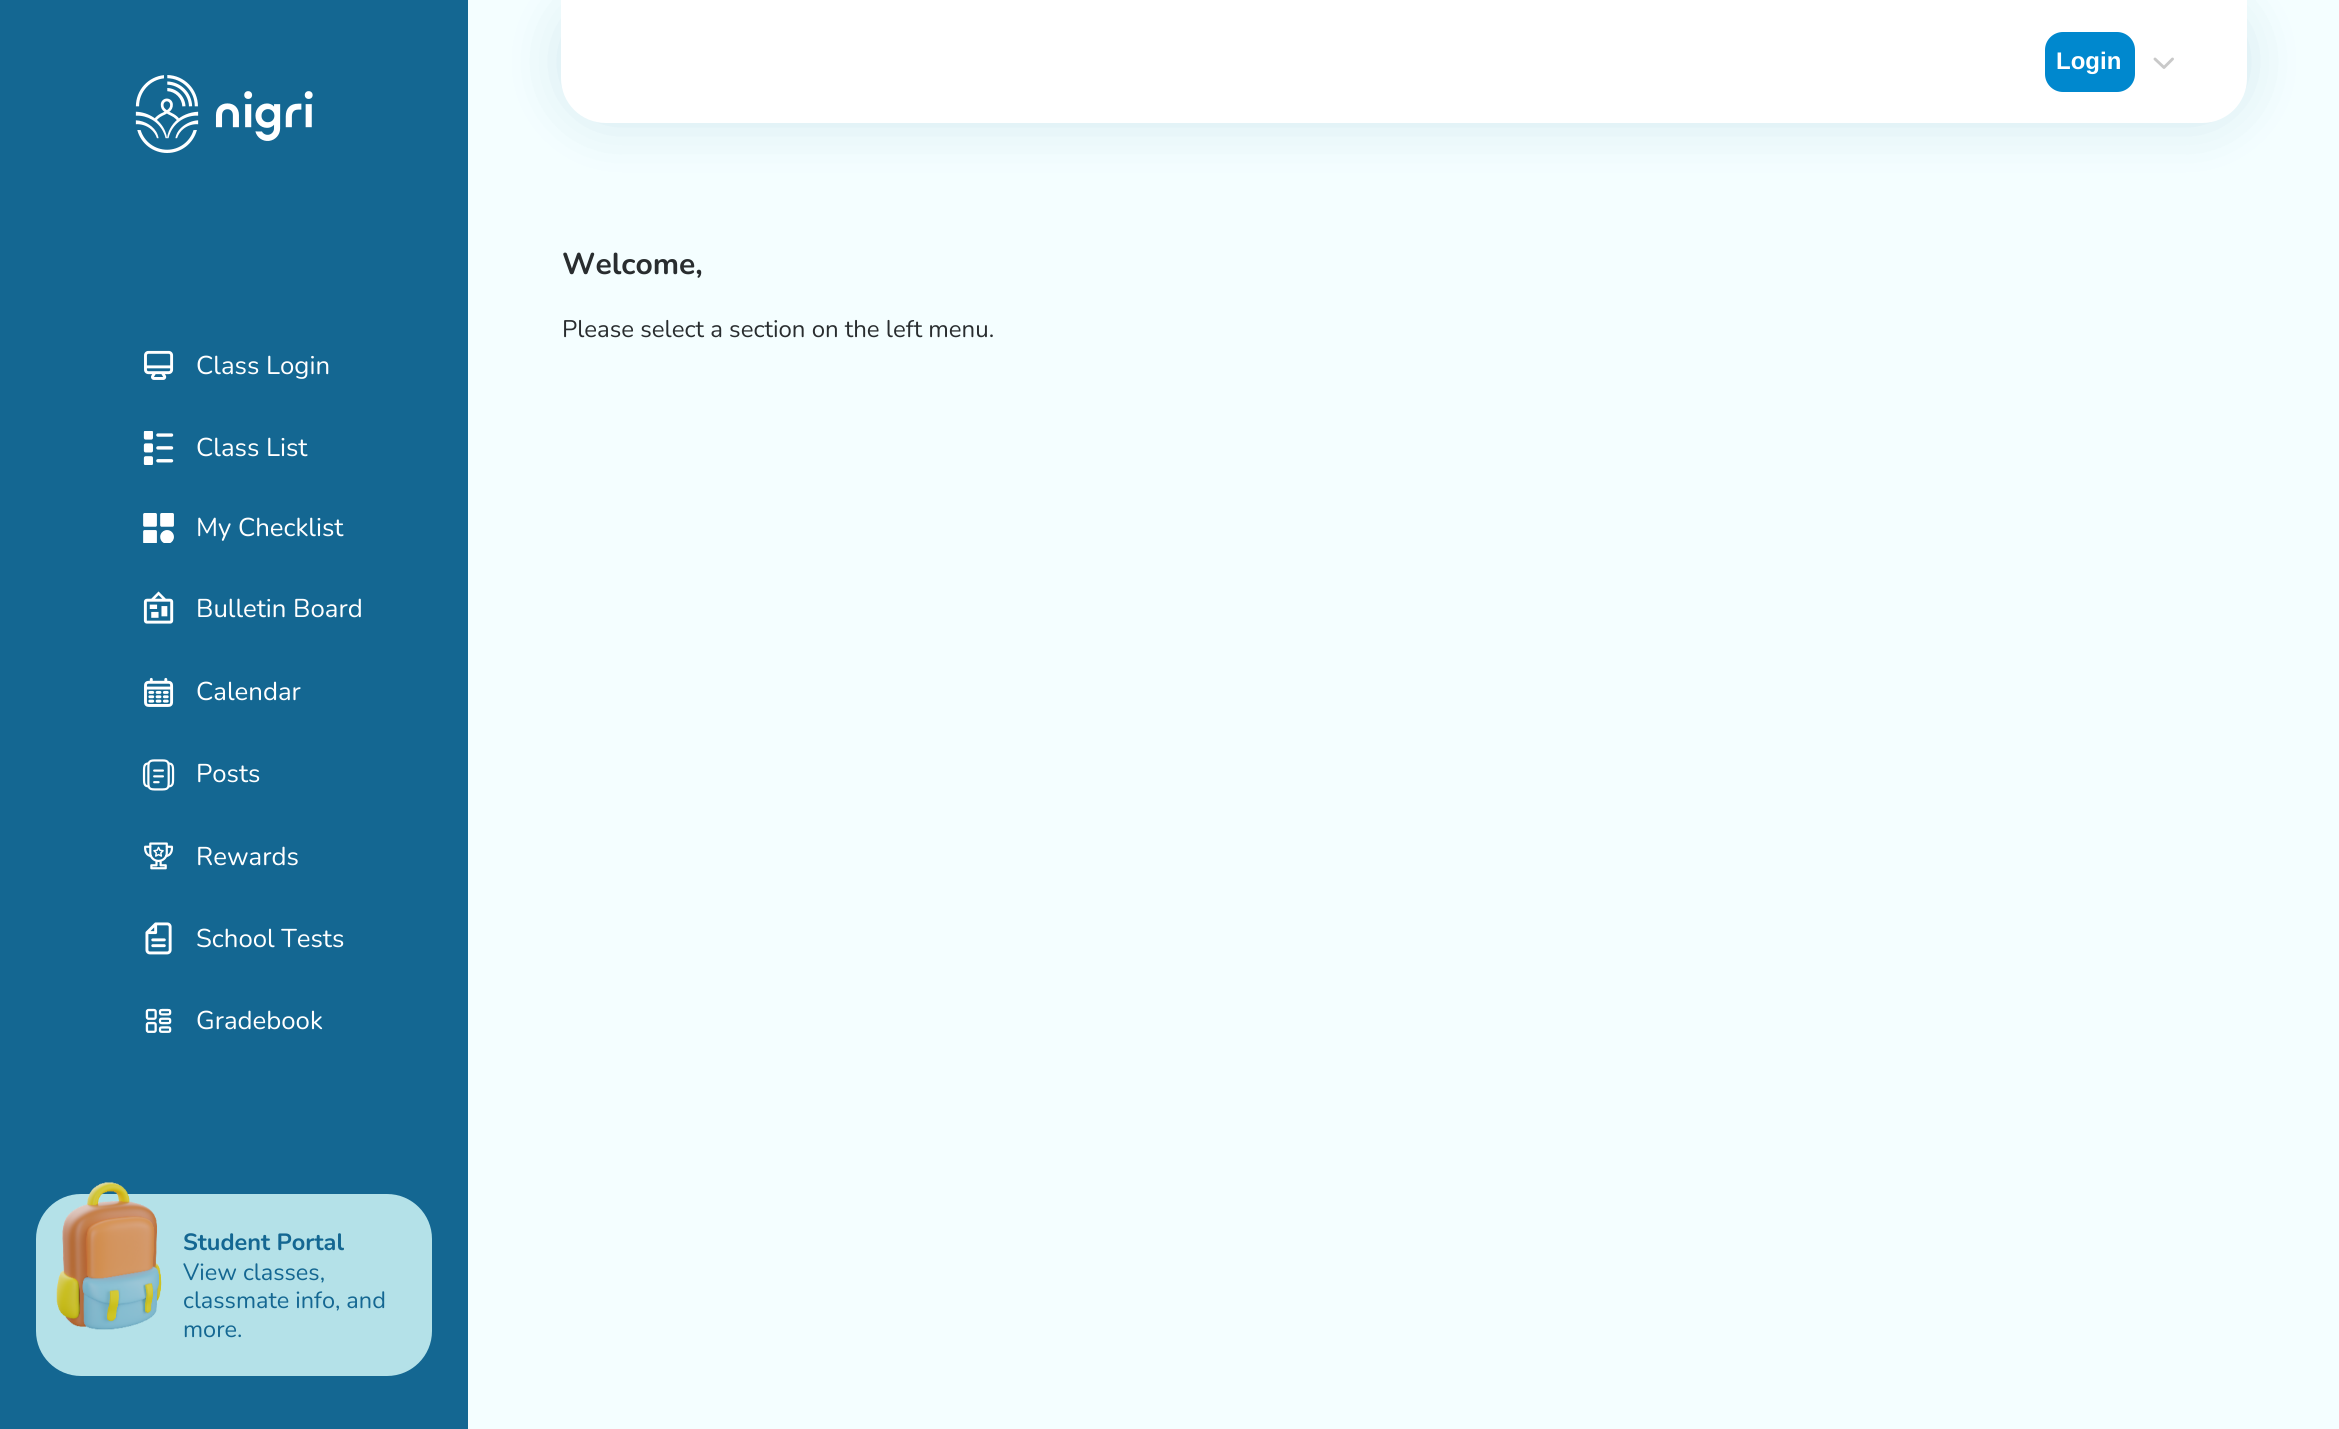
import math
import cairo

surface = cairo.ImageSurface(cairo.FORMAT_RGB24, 2339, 1429)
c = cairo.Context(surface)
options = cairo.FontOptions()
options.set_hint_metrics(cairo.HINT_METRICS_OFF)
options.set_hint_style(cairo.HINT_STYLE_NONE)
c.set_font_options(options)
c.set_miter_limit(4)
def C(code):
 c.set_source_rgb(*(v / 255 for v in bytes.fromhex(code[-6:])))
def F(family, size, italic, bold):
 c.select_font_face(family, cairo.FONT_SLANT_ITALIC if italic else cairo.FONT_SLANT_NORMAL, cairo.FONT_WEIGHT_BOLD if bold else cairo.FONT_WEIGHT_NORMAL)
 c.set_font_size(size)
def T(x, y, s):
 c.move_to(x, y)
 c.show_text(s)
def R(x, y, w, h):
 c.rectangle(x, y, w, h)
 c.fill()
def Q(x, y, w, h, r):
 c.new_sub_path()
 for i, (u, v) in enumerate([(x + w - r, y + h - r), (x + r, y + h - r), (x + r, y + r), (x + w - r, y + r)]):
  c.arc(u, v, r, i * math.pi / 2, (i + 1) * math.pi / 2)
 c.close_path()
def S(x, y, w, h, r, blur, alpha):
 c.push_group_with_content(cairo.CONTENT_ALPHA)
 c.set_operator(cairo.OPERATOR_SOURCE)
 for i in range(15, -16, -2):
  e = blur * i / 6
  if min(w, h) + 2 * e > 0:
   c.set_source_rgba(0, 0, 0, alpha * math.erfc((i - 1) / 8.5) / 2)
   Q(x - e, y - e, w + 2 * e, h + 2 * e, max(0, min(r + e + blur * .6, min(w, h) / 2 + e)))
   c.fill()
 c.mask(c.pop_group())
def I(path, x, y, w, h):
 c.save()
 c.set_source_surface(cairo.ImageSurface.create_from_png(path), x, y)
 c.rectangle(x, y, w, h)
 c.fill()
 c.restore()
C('146792')
c.paint()
C('f4feff')
R(468,0,1871,1429)
C('146792')
S(561,0,1686,123,45,27,.15)
C('ffffff')
c.new_path()
c.move_to(561,0)
c.line_to(2247,0)
c.line_to(2247,78)
c.curve_to(2247,103,2227,123,2202,123)
c.line_to(606,123)
c.curve_to(581,123,561,103,561,78)
c.close_path()
c.fill()
C('0088ce')
Q(2045,32,90,60,18)
c.fill()
F('Liberation Sans',24,0,1)
C('ffffff')
T(2056,69,'Login')
c.new_path()
c.move_to(2172.5,59)
c.line_to(2164,67.5)
c.line_to(2155,59)
C('c9c9c9')
c.set_line_width(2.9)
c.set_line_cap(cairo.LINE_CAP_ROUND)
c.set_line_join(cairo.LINE_JOIN_ROUND)
c.stroke()
F('Nunito',30,0,1)
C('292d2f')
T(562,274,'Welcome,')
F('Nunito',24,0,0)
T(562,337,'Please select a section on the left menu.')
I('1.png',135,75,178,78)
I('2.png',144,350,30,30)
F('Nunito',25.75,0,0)
C('ffffff')
T(196,374,'Class Login')
I('3.png',143,431,31,34)
T(196,456,'Class List')
I('4.png',143,513,31,30)
T(196,536,'My Checklist')
I('5.png',143,591,31,33)
T(196,617,'Bulletin Board')
I('6.png',144,677,30,30)
T(196,700,'Calendar')
I('7.png',142,759,33,32)
T(196,782,'Posts')
I('8.png',144,842,30,28)
T(196,865,'Rewards')
I('9.png',145,922,27,33)
T(196,947,'School Tests')
I('10.png',145,1008,27,25)
T(196,1029,'Gradebook')
C('b4e1e8')
Q(36,1194,396,182,45)
c.fill()
I('11.png',56,1182,106,148)
F('Nunito',23.5,0,1)
C('146792')
T(183,1250,'Student Portal')
F('Nunito',23.5,0,0)
T(183,1280,'View classes,')
T(183,1308,'classmate info, and')
T(183,1337,'more.')
surface.write_to_png('o.png')
